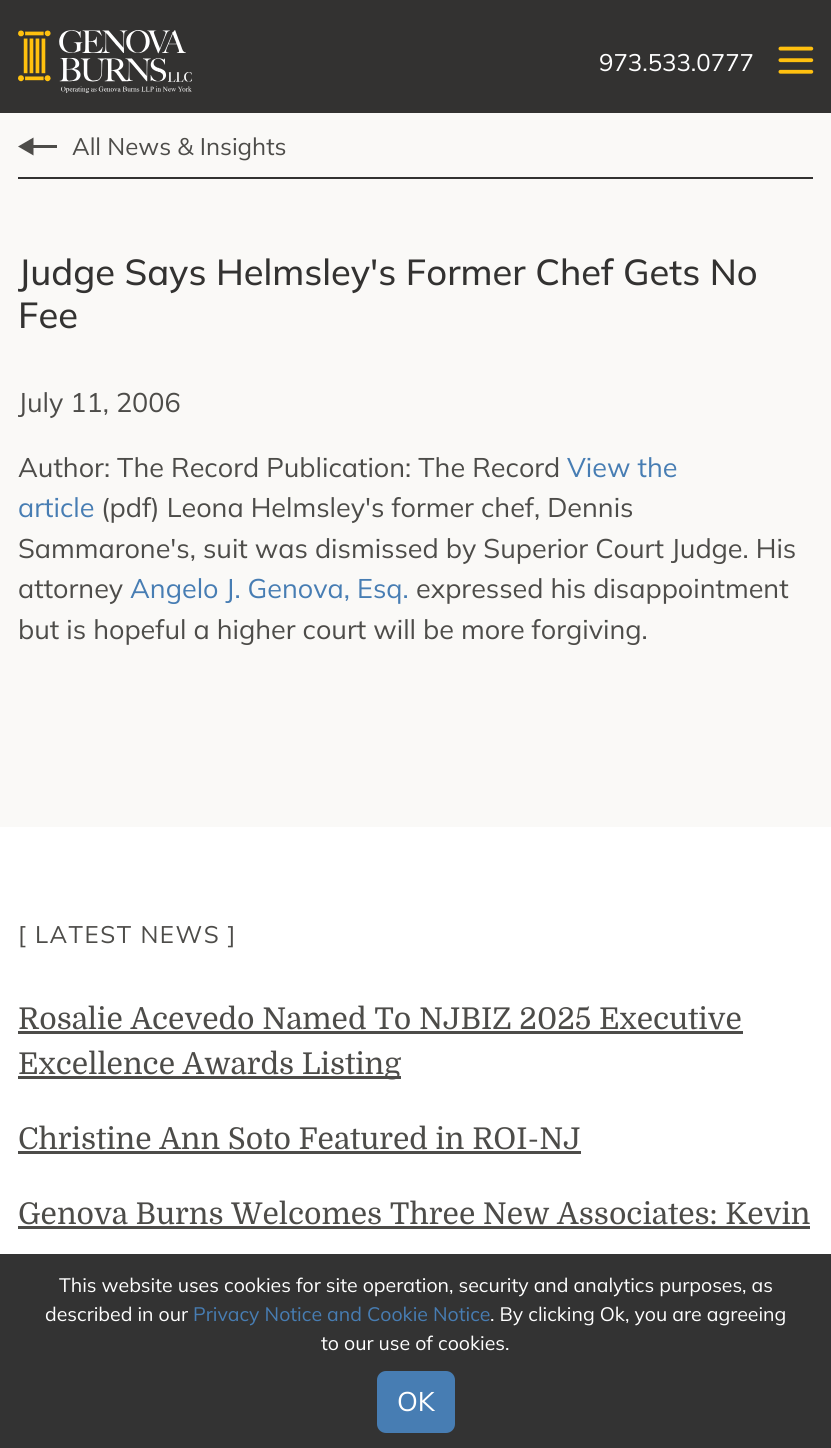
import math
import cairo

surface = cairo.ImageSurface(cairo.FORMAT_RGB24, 831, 1448)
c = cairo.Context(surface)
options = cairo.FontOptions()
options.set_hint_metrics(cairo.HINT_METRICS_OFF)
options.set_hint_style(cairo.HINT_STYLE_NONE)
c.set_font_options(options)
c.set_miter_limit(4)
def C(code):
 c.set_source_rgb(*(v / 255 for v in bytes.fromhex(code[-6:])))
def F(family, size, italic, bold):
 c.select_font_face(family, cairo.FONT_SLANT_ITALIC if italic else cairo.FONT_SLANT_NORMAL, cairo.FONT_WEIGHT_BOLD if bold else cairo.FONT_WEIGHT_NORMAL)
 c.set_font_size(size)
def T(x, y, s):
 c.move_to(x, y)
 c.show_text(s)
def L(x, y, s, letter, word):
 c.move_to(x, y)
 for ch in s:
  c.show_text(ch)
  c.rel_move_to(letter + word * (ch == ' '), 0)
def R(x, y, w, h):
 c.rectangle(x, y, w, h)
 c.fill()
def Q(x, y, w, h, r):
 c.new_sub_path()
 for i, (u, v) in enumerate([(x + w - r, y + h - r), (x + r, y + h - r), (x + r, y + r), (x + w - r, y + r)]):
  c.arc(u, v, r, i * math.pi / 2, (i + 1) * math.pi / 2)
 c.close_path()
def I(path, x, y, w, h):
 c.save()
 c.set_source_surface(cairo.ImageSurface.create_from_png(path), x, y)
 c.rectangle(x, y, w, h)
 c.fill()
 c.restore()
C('faf9f7')
c.paint()
C('333231')
R(0,0,831,113)
I('1.png',18,30,174,63)
F('Mulish',24,0,0)
C('ffffff')
T(599,71,'973.533.0777')
I('2.png',778,46,36,28)
C('333231')
R(18,177,795,2)
C('4d4c49')
c.new_path()
c.move_to(57,145)
c.line_to(33.5,145)
c.line_to(33.5,137.5)
c.line_to(18,146.5)
c.line_to(33.5,155.5)
c.line_to(33.5,148)
c.line_to(57,148)
c.close_path()
c.fill()
T(72,155,'All News & Insights')
F('Mulish Medium',36.2,0,0)
C('333231')
T(18,285,'Judge Says Helmsley\'s Former Chef Gets No')
T(18,328,'Fee')
F('Mulish',27,0,0)
C('4d4c49')
T(18,412,'July 11, 2006')
T(18,477,'Author: The Record Publication: The Record')
C('477db3')
T(567,477,'View the')
T(18,517,'article')
C('4d4c49')
T(101,517,'(pdf) Leona Helmsley\'s former chef, Dennis')
T(18,558,'Sammarone\'s, suit was dismissed by Superior Court Judge. His')
T(18,598,'attorney')
C('477db3')
T(130,598,'Angelo J. Genova, Esq.')
C('4d4c49')
T(416,598,'expressed his disappointment')
T(18,639,'but is hopeful a higher court will be more forgiving.')
C('ffffff')
R(0,827,831,427)
F('Mulish',24,0,0)
C('4d4c49')
L(18,943,'[ LATEST NEWS ]',1.5,0)
F('Domine',30,0,0)
T(18,1029,'Rosalie Acevedo Named To NJBIZ 2025 Executive')
R(18,1031,725,3)
R(18,1076,383,3)
T(18,1074,'Excellence Awards Listing')
T(18,1149,'Christine Ann Soto Featured in ROI-NJ')
R(18,1151,563,3)
T(18,1224,'Genova Burns Welcomes Three New Associates: Kevin')
R(18,1226,792,3)
C('333333')
R(0,1254,831,194)
F('Mulish',19.5,0,0)
C('ffffff')
T(59,1292,'This website uses cookies for site operation, security and analytics purposes, as')
T(45,1321,'described in our')
C('477db3')
T(193,1321,'Privacy Notice and Cookie Notice')
C('ffffff')
T(490,1321,'. By clicking Ok, you are agreeing')
T(321,1350,'to our use of cookies.')
C('477db3')
Q(378,1372,76,60,8)
c.fill_preserve()
c.stroke()
F('Mulish',27,0,0)
C('ffffff')
T(397,1411,'OK')
surface.write_to_png('o.png')
